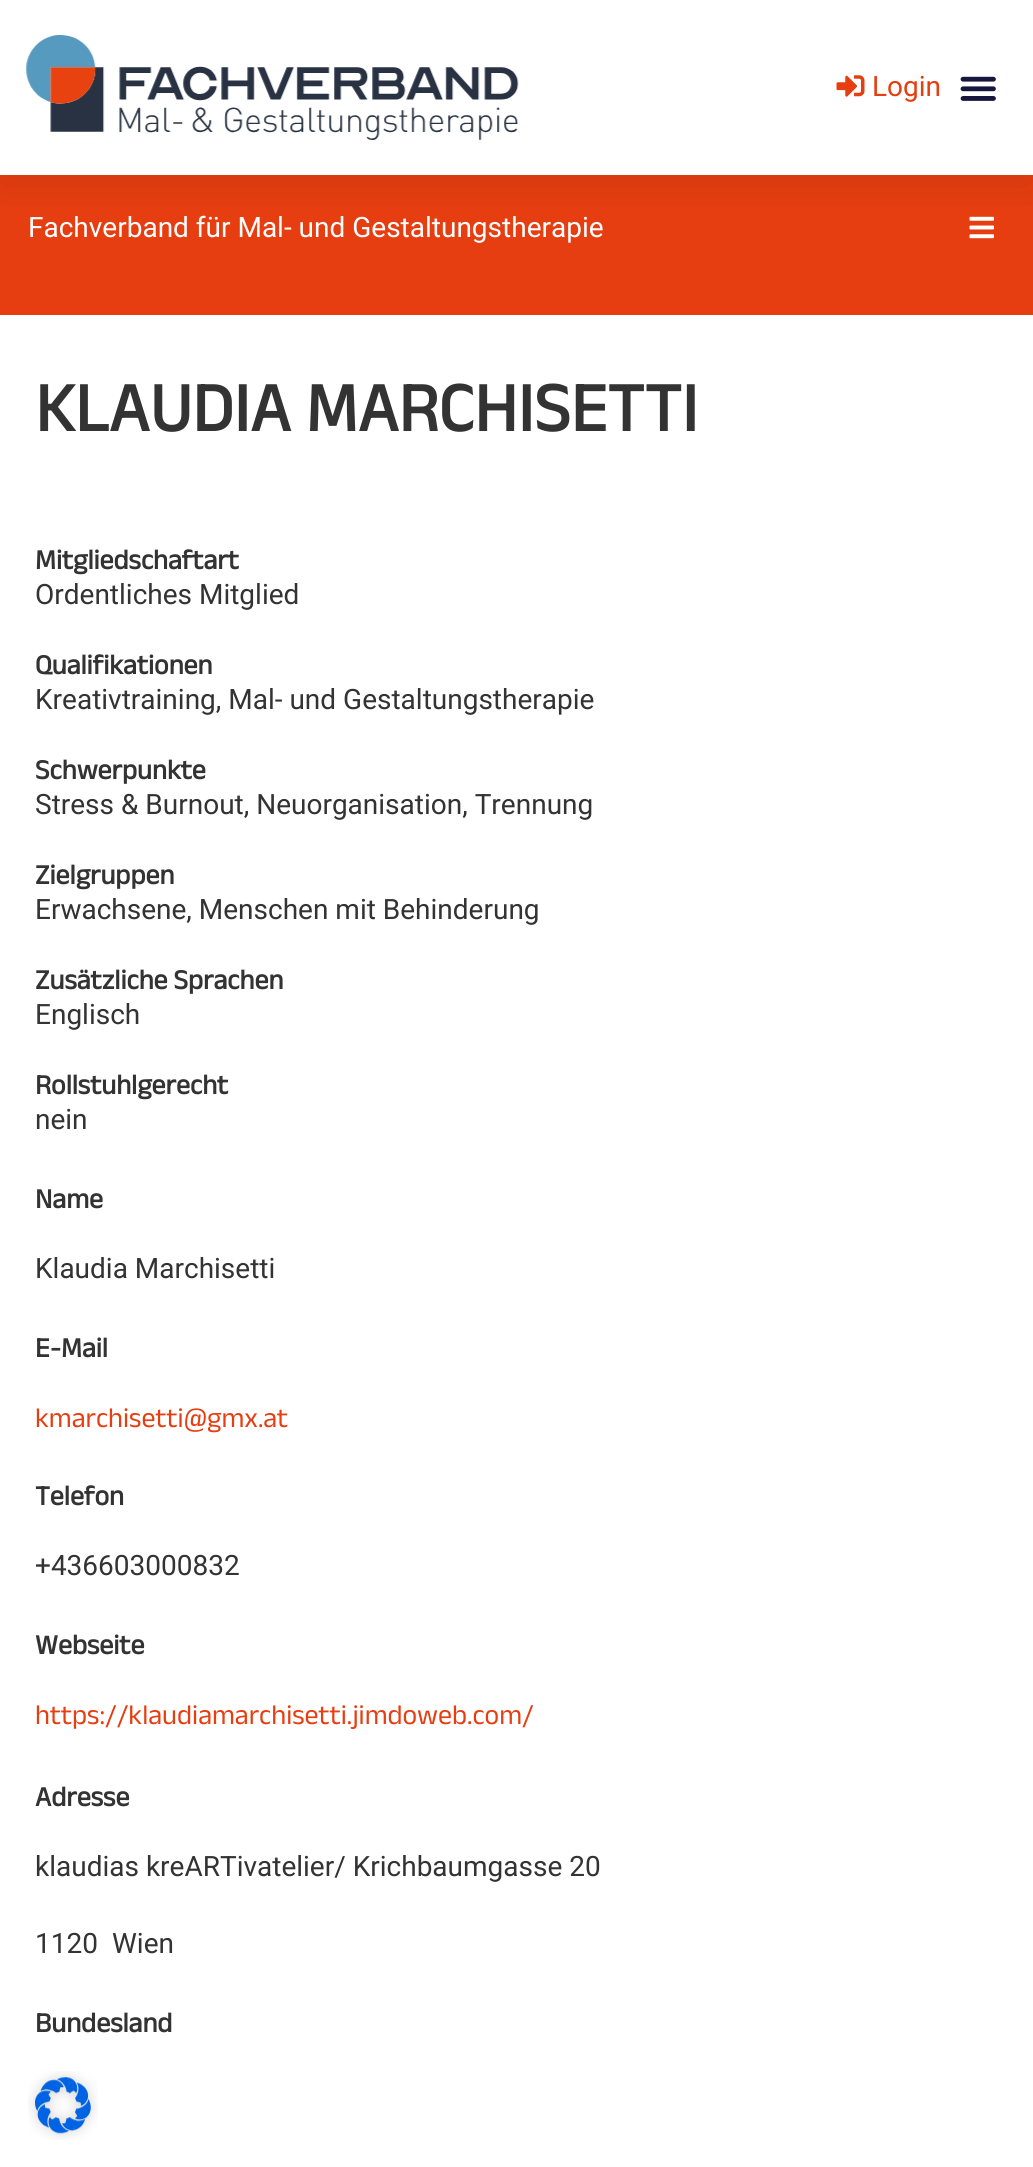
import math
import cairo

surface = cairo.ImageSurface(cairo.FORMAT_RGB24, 1033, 2167)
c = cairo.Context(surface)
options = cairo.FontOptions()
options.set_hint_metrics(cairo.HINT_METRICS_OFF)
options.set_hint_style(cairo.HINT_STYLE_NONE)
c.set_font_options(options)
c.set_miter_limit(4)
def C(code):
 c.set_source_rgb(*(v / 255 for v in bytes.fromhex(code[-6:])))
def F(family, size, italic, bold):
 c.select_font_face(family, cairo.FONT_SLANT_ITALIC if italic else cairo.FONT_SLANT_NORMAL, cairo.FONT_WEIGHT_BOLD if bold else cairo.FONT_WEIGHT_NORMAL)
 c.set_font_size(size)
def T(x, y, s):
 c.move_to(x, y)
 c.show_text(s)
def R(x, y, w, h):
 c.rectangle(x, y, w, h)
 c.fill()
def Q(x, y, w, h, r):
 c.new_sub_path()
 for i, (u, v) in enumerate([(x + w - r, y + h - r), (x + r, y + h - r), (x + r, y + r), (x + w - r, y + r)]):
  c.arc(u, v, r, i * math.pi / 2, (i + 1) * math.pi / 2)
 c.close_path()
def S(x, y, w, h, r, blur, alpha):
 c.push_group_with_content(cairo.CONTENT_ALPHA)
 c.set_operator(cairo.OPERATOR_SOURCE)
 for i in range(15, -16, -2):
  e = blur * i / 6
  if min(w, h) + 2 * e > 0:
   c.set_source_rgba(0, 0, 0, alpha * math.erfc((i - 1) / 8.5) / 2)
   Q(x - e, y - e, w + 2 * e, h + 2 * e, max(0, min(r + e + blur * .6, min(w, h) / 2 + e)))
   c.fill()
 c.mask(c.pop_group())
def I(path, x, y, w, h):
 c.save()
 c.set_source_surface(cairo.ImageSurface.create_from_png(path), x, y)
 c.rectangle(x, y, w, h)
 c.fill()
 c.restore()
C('ffffff')
c.paint()
C('e73e11')
R(0,175,1033,140)
I('4.png',969,216,25,23)
c.save()
c.rectangle(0,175,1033,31)
c.clip()
C('000000')
S(0,9,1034,175,0,26,.1)
c.restore()
I('1.png',26,35,493,105)
I('2.png',836,75,29,22)
F('Roboto',28,0,0)
T(872,96,'Login')
I('3.png',960,76,36,25)
C('ffffff')
T(28,237,'Fachverband für Mal- und Gestaltungstherapie')
F('Anek Latin',70,0,1)
C('333333')
T(35,431,'KLAUDIA MARCHISETTI')
F('Anek Latin',28,0,1)
T(35,569,'Mitgliedschaftart')
F('Roboto',28,0,0)
T(35,604,'Ordentliches Mitglied')
F('Anek Latin',28,0,1)
T(35,674,'Qualifikationen')
F('Roboto',28,0,0)
T(35,709,'Kreativtraining, Mal- und Gestaltungstherapie')
F('Anek Latin',28,0,1)
T(35,779,'Schwerpunkte')
F('Roboto',28,0,0)
T(35,814,'Stress & Burnout, Neuorganisation, Trennung')
F('Anek Latin',28,0,1)
T(35,884,'Zielgruppen')
F('Roboto',28,0,0)
T(35,919,'Erwachsene, Menschen mit Behinderung')
F('Anek Latin',28,0,1)
T(35,989,'Zusätzliche Sprachen')
F('Roboto',28,0,0)
T(35,1024,'Englisch')
F('Anek Latin',28,0,1)
T(35,1094,'Rollstuhlgerecht')
F('Roboto',28,0,0)
T(35,1129,'nein')
F('Anek Latin',28,0,1)
T(35,1208,'Name')
F('Roboto',28,0,0)
T(35,1278,'Klaudia Marchisetti')
F('Anek Latin',28,0,1)
T(35,1357,'E-Mail')
F('Anek Latin',28,0,0)
C('e73e11')
T(35,1427,'kmarchisetti@gmx.at')
F('Anek Latin',28,0,1)
C('333333')
T(35,1505,'Telefon')
F('Roboto',28,0,0)
T(35,1575,'+436603000832')
F('Anek Latin',28,0,1)
T(35,1654,'Webseite')
F('Anek Latin',28,0,0)
C('e73e11')
T(35,1724,'https://klaudiamarchisetti.jimdoweb.com/')
F('Anek Latin',28,0,1)
C('333333')
T(35,1806,'Adresse')
F('Roboto',28,0,0)
T(35,1876,'klaudias kreARTivatelier/ Krichbaumgasse 20')
T(35,1953,'1120')
T(112,1953,'Wien')
F('Anek Latin',28,0,1)
T(35,2032,'Bundesland')
I('5.png',28,2071,70,69)
surface.write_to_png('o.png')
